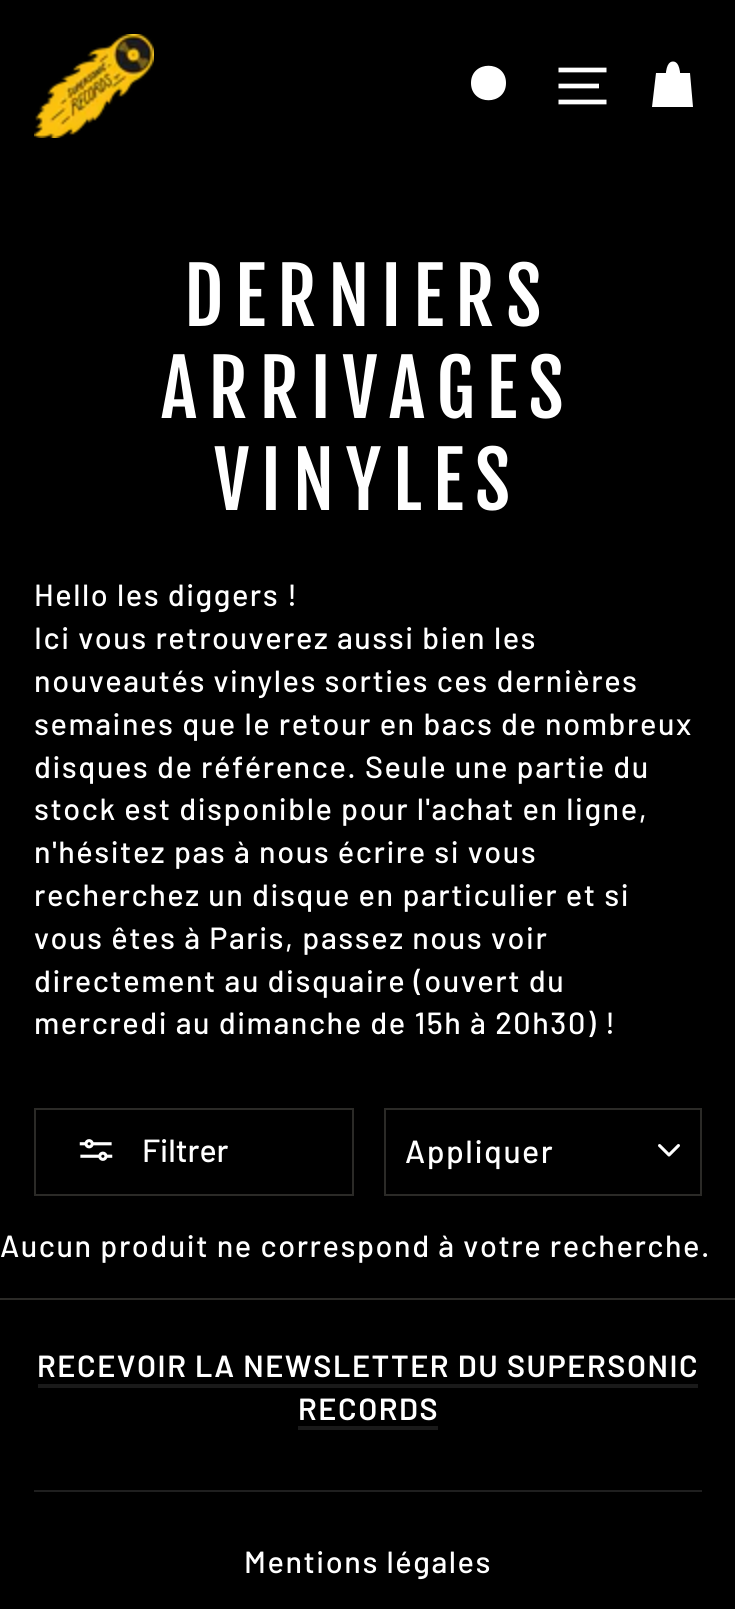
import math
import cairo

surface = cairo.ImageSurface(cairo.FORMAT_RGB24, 735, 1609)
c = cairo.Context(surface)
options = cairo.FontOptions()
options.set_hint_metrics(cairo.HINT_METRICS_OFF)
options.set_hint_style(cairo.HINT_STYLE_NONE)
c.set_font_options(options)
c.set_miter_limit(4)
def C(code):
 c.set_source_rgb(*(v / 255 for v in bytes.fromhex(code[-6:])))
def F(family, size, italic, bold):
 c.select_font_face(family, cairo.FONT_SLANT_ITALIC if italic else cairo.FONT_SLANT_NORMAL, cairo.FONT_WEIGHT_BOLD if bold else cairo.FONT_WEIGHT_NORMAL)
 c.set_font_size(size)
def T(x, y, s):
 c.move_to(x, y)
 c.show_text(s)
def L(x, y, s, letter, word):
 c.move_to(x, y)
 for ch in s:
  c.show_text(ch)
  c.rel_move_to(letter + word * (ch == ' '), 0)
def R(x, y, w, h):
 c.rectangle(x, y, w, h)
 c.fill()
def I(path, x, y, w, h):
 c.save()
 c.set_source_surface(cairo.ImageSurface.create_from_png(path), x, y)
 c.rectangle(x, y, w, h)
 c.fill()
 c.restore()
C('000000')
c.paint()
I('1.png',34,34,120,104)
C('ffffff')
c.new_path()
c.move_to(506,83)
c.curve_to(506,106,471,106,471,83)
c.curve_to(471,60,506,60,506,83)
c.close_path()
c.move_to(513,107)
c.line_to(501,95)
c.fill()
c.new_path()
c.move_to(558.5,70)
c.line_to(606.5,70)
c.move_to(558.5,86)
c.line_to(599,86)
c.move_to(558.5,102)
c.line_to(606.5,102)
c.set_line_width(4.7)
c.stroke()
c.new_path()
c.move_to(665.5,80.5)
c.curve_to(665.5,65.5,669,61.5,673,61.5)
c.curve_to(677,61.5,680.5,65.5,680.5,80.5)
c.fill()
c.new_path()
c.move_to(656,73)
c.line_to(690,73)
c.line_to(693,107)
c.line_to(652,107)
c.close_path()
c.fill()
F('Fjalla One',76.5,0,0)
L(184,326,'DERNIERS',11.5,0)
L(161,418,'ARRIVAGES',11.5,0)
L(214,510,'VINYLES',11.5,0)
F('Barlow Medium',30.6,0,0)
L(34,606,'Hello les diggers !',1.55,0)
L(34,649,'Ici vous retrouverez aussi bien les',1.55,0)
L(34,692,'nouveautés vinyles sorties ces dernières',1.55,0)
L(34,735,'semaines que le retour en bacs de nombreux',1.55,0)
L(34,778,'disques de référence. Seule une partie du',1.55,0)
L(34,820,'stock est disponible pour l\'achat en ligne,',1.55,0)
L(34,863,'n\'hésitez pas à nous écrire si vous',1.55,0)
L(34,906,'recherchez un disque en particulier et si',1.55,0)
L(34,949,'vous êtes à Paris, passez nous voir',1.55,0)
L(34,992,'directement au disquaire (ouvert du',1.55,0)
L(34,1034,'mercredi au dimanche de 15h à 20h30) !',1.55,0)
c.rectangle(35,1109,318,86)
C('2b2a27')
c.set_line_width(2)
c.stroke()
I('2.png',79,1139,34,22)
F('Barlow Medium',32,0,0)
C('ffffff')
T(142,1162,'Filtrer')
I('3.png',658,1144,22,13)
c.rectangle(385,1109,316,86)
C('2b2a27')
c.stroke()
C('ffffff')
L(405,1163,'Appliquer',1.5,0)
F('Barlow Medium',30.6,0,0)
L(0,1257,'Aucun produit ne correspond à votre recherche.',1.55,0)
C('2b2a27')
R(0,1298,735,2)
F('Barlow SemiBold',30.6,0,0)
C('ffffff')
L(37,1377,'RECEVOIR LA NEWSLETTER DU SUPERSONIC',1.55,0)
C('1a1a1a')
R(38,1384,660,4)
C('ffffff')
L(298,1420,'RECORDS',1.55,0)
C('1a1a1a')
R(298,1426,140,4)
C('1f1f1f')
R(34,1490,668,2)
F('Barlow Medium',30.6,0,0)
C('ffffff')
L(244,1573,'Mentions légales',1.55,0)
surface.write_to_png('o.png')
